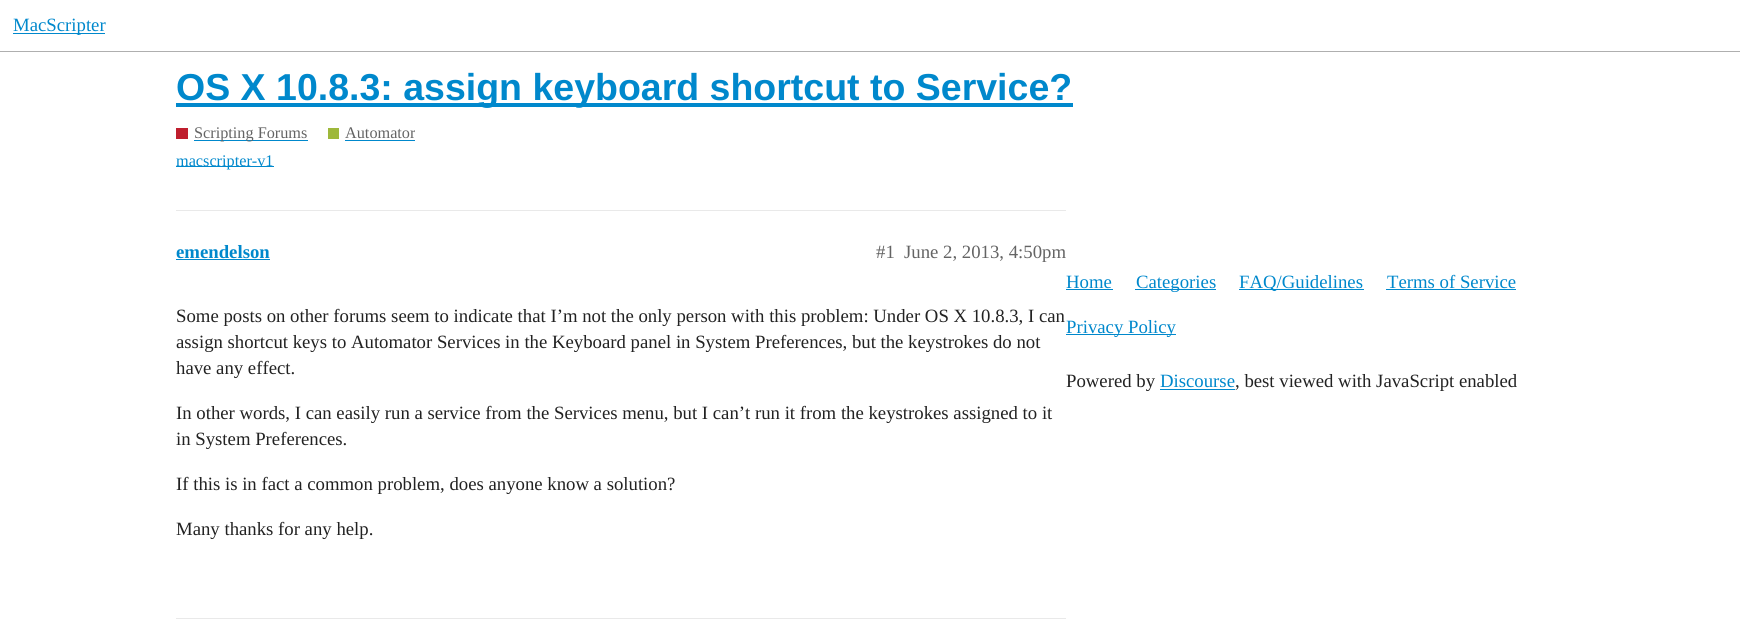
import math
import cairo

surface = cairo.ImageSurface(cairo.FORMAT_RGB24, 1740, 631)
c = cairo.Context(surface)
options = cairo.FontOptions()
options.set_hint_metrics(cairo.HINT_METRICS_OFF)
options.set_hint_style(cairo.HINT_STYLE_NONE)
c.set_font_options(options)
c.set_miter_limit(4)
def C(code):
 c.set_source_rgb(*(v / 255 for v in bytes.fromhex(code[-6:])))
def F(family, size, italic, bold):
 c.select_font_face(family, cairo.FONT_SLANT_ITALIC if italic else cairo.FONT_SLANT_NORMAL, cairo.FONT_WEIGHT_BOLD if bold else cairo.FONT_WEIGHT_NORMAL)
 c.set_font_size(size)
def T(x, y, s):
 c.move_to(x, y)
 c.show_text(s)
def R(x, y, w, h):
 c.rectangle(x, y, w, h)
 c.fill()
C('ffffff')
c.paint()
C('afafaf')
R(0,51,1740,1)
C('0088cc')
R(13,33,92,1)
F('Liberation Serif',18.75,0,0)
T(13,31,'MacScripter')
R(176,103,897,4)
F('Liberation Sans',37.5,0,1)
T(176,100,'OS X 10.8.3: assign keyboard shortcut to Service?')
C('bf1e2e')
R(176,128,12,11)
C('0088cc')
R(194,140,114,1)
F('Liberation Serif',16.25,0,0)
C('646464')
T(194,138,'Scripting Forums')
C('9eb83b')
R(328,128,11,11)
c.save()
c.rectangle(345,123,70,22)
c.clip()
C('646464')
T(345,138,'Automator')
c.restore()
C('0088cc')
R(345,140,70,1)
R(176,166,98,1)
T(176,166,'macscripter-v1')
C('e9e9e9')
R(176,210,890,1)
F('Liberation Serif',18.75,0,1)
C('0088cc')
T(176,258,'emendelson')
R(176,259,94,1)
F('Liberation Serif',18.75,0,0)
C('646464')
T(876,258,'#1')
T(904,258,'June 2, 2013, 4:50pm')
C('222222')
T(176,322,'Some posts on other forums seem to indicate that I’m not the only person with this problem: Under OS X 10.8.3, I can')
T(176,348,'assign shortcut keys to Automator Services in the Keyboard panel in System Preferences, but the keystrokes do not')
T(176,374,'have any effect.')
T(176,419,'In other words, I can easily run a service from the Services menu, but I can’t run it from the keystrokes assigned to it')
T(176,445,'in System Preferences.')
T(176,490,'If this is in fact a common problem, does anyone know a solution?')
T(176,535,'Many thanks for any help.')
C('e9e9e9')
R(176,618,890,1)
C('0088cc')
T(1066,288,'Home')
R(1066,289,47,1)
R(1135,289,81,1)
T(1136,288,'Categories')
R(1239,289,125,1)
T(1239,288,'FAQ/Guidelines')
T(1387,288,'Terms of Service')
R(1386,289,130,1)
R(1066,334,110,1)
T(1066,333,'Privacy Policy')
C('222222')
T(1066,387,'Powered by')
C('0088cc')
T(1160,387,'Discourse')
R(1160,389,75,1)
C('222222')
T(1235,387,', best viewed with JavaScript enabled')
surface.write_to_png('o.png')
